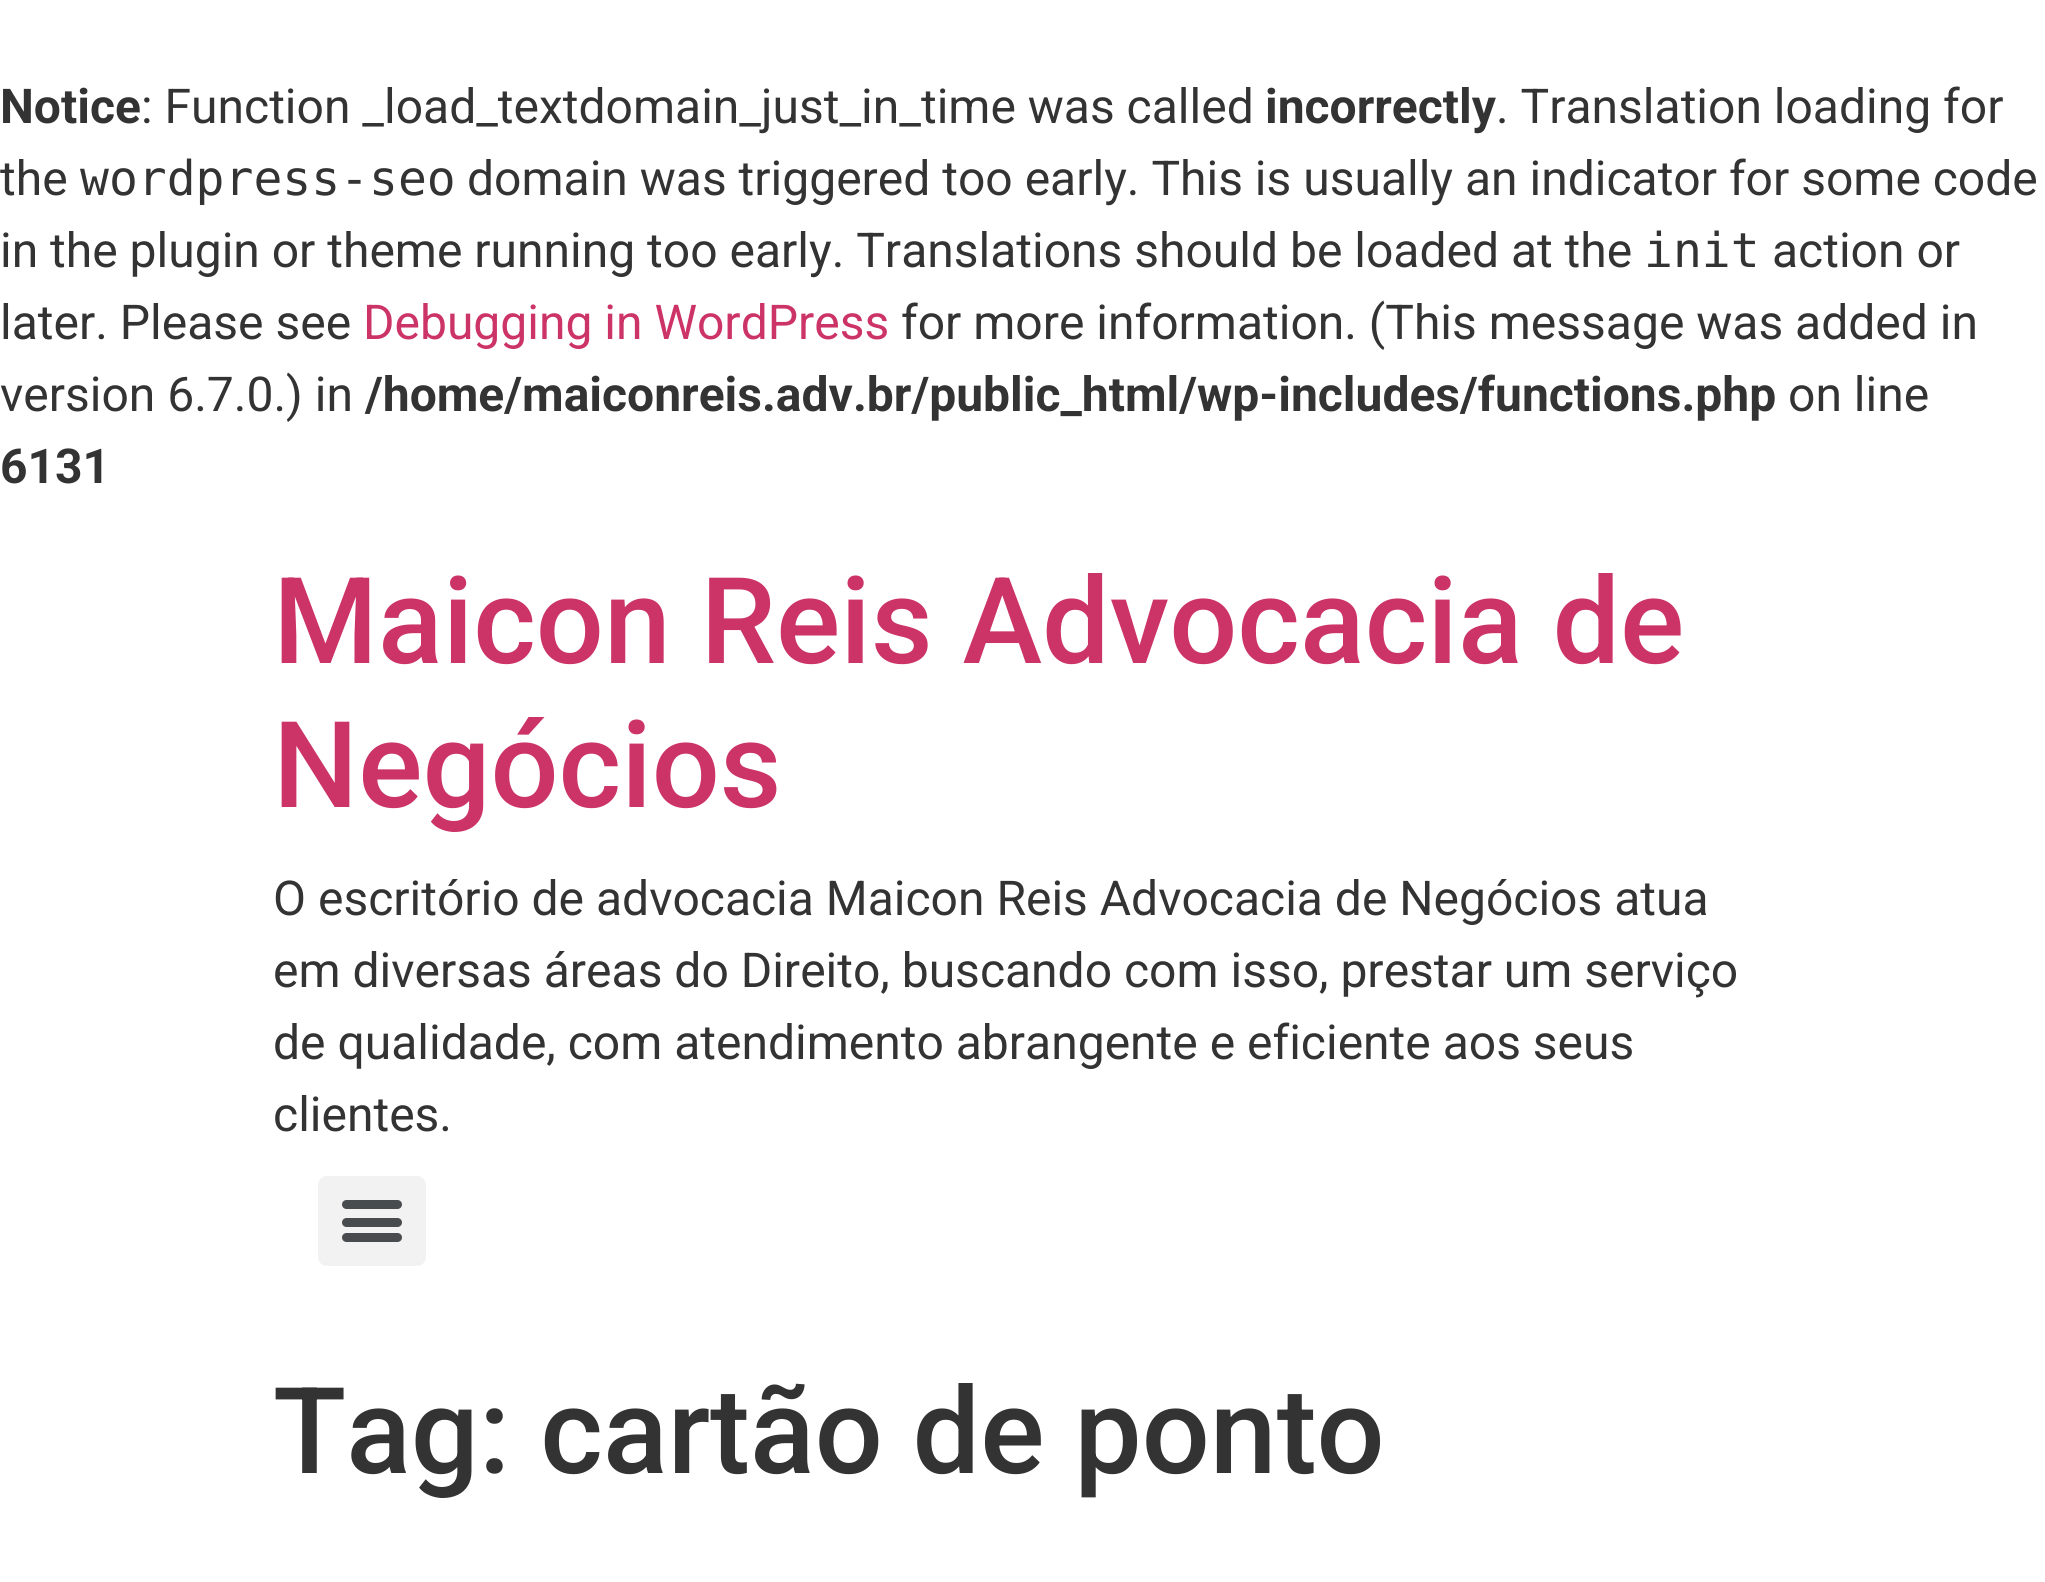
import math
import cairo

surface = cairo.ImageSurface(cairo.FORMAT_RGB24, 2045, 1582)
c = cairo.Context(surface)
options = cairo.FontOptions()
options.set_hint_metrics(cairo.HINT_METRICS_OFF)
options.set_hint_style(cairo.HINT_STYLE_NONE)
c.set_font_options(options)
c.set_miter_limit(4)
def C(code):
 c.set_source_rgb(*(v / 255 for v in bytes.fromhex(code[-6:])))
def F(family, size, italic, bold):
 c.select_font_face(family, cairo.FONT_SLANT_ITALIC if italic else cairo.FONT_SLANT_NORMAL, cairo.FONT_WEIGHT_BOLD if bold else cairo.FONT_WEIGHT_NORMAL)
 c.set_font_size(size)
def T(x, y, s):
 c.move_to(x, y)
 c.show_text(s)
def Q(x, y, w, h, r):
 c.new_sub_path()
 for i, (u, v) in enumerate([(x + w - r, y + h - r), (x + r, y + h - r), (x + r, y + r), (x + w - r, y + r)]):
  c.arc(u, v, r, i * math.pi / 2, (i + 1) * math.pi / 2)
 c.close_path()
C('ffffff')
c.paint()
F('Roboto',48,0,1)
C('333333')
T(0,123,'Notice')
F('Roboto',48,0,0)
T(141,123,': Function _load_textdomain_just_in_time was called')
F('Roboto',48,0,1)
T(1265,123,'incorrectly')
F('Roboto',48,0,0)
T(1496,123,'. Translation loading for')
T(0,195,'the')
F('DejaVu Sans Mono',48,0,0)
T(80,195,'wordpress-seo')
F('Roboto',48,0,0)
T(467,195,'domain was triggered too early. This is usually an indicator for some code')
T(0,267,'in the plugin or theme running too early. Translations should be loaded at the')
F('DejaVu Sans Mono',48,0,0)
T(1644,267,'init')
F('Roboto',48,0,0)
T(1772,267,'action or')
T(0,339,'later. Please see')
C('cc3366')
T(363,339,'Debugging in WordPress')
C('333333')
T(901,339,'for more information. (This message was added in')
T(0,411,'version 6.7.0.) in')
F('Roboto',48,0,1)
T(365,411,'/home/maiconreis.adv.br/public_html/wp-includes/functions.php')
F('Roboto',48,0,0)
T(1788,411,'on line')
F('Roboto',48,0,1)
T(0,483,'6131')
F('Roboto Medium',120,0,0)
C('cc3366')
T(273,663,'Maicon Reis Advocacia de')
T(273,807,'Negócios')
F('Roboto',48,0,0)
C('333333')
T(273,915,'O escritório de advocacia Maicon Reis Advocacia de Negócios atua')
T(273,987,'em diversas áreas do Direito, buscando com isso, prestar um serviço')
T(273,1059,'de qualidade, com atendimento abrangente e eficiente aos seus')
T(273,1131,'clientes.')
C('f2f2f2')
Q(318,1176,108,90,9)
c.fill()
C('494c4f')
Q(342,1218,60,9,4.5)
c.fill()
Q(342,1200,60,9,4.5)
c.fill()
Q(342,1233,60,9,4.5)
c.fill()
F('Roboto Medium',120,0,0)
C('333333')
T(273,1473,'Tag: cartão de ponto')
surface.write_to_png('o.png')
